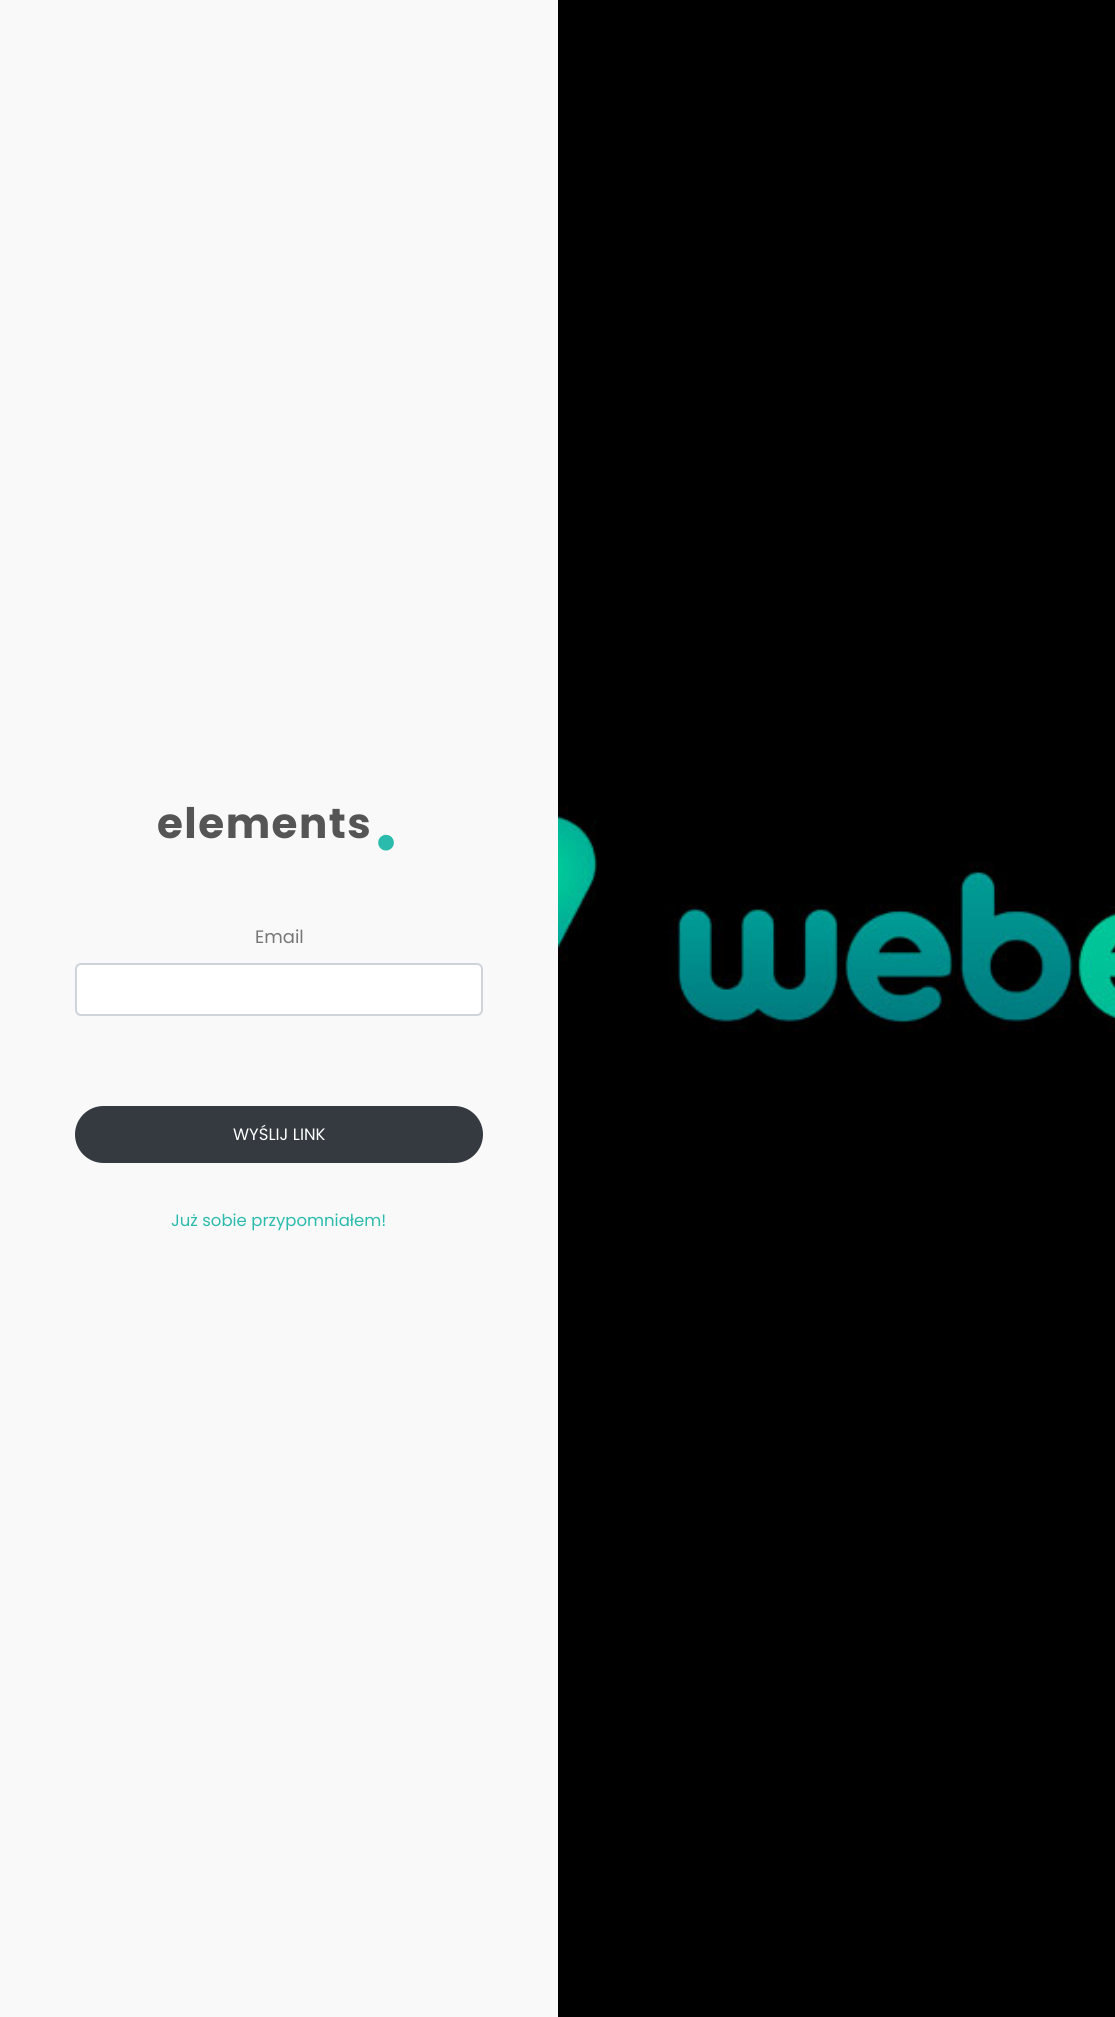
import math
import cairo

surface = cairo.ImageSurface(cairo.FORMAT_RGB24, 1115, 2017)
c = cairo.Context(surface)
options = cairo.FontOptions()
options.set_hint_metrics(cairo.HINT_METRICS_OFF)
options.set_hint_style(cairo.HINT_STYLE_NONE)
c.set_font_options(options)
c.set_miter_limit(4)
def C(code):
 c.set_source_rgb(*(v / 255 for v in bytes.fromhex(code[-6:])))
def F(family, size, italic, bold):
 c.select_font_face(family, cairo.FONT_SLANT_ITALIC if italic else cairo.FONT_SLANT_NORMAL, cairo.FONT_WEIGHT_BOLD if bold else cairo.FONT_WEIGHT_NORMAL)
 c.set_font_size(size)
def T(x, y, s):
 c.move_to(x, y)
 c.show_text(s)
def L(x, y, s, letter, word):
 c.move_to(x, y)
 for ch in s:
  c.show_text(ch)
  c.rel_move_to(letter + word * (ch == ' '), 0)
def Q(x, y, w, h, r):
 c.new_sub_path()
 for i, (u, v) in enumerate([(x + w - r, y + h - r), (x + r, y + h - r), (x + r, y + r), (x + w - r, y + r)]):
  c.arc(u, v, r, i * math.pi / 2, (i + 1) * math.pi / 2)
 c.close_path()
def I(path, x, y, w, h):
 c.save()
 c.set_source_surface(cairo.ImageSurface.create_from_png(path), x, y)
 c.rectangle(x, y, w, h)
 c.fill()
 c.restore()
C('f9f9f9')
c.paint()
F('Poppins',42,0,1)
C('555555')
L(157,838,'elements',1.5,0)
F('Poppins',52,0,1)
C('2bbbad')
L(373,860,'•',1.5,0)
F('Poppins',18,0,0)
C('777777')
T(255,943,'Email')
C('ffffff')
Q(76,964,406,51,5)
c.fill_preserve()
C('ced4da')
c.stroke()
C('343a40')
Q(76,1107,406,55,27.5)
c.fill_preserve()
c.stroke()
F('Poppins',16.5,0,0)
C('ffffff')
T(233,1140,'WYŚLIJ LINK')
C('2bbbad')
T(171,1226,'Już sobie przypomniałem!')
I('1.png',558,0,557,2017)
surface.write_to_png('o.png')
